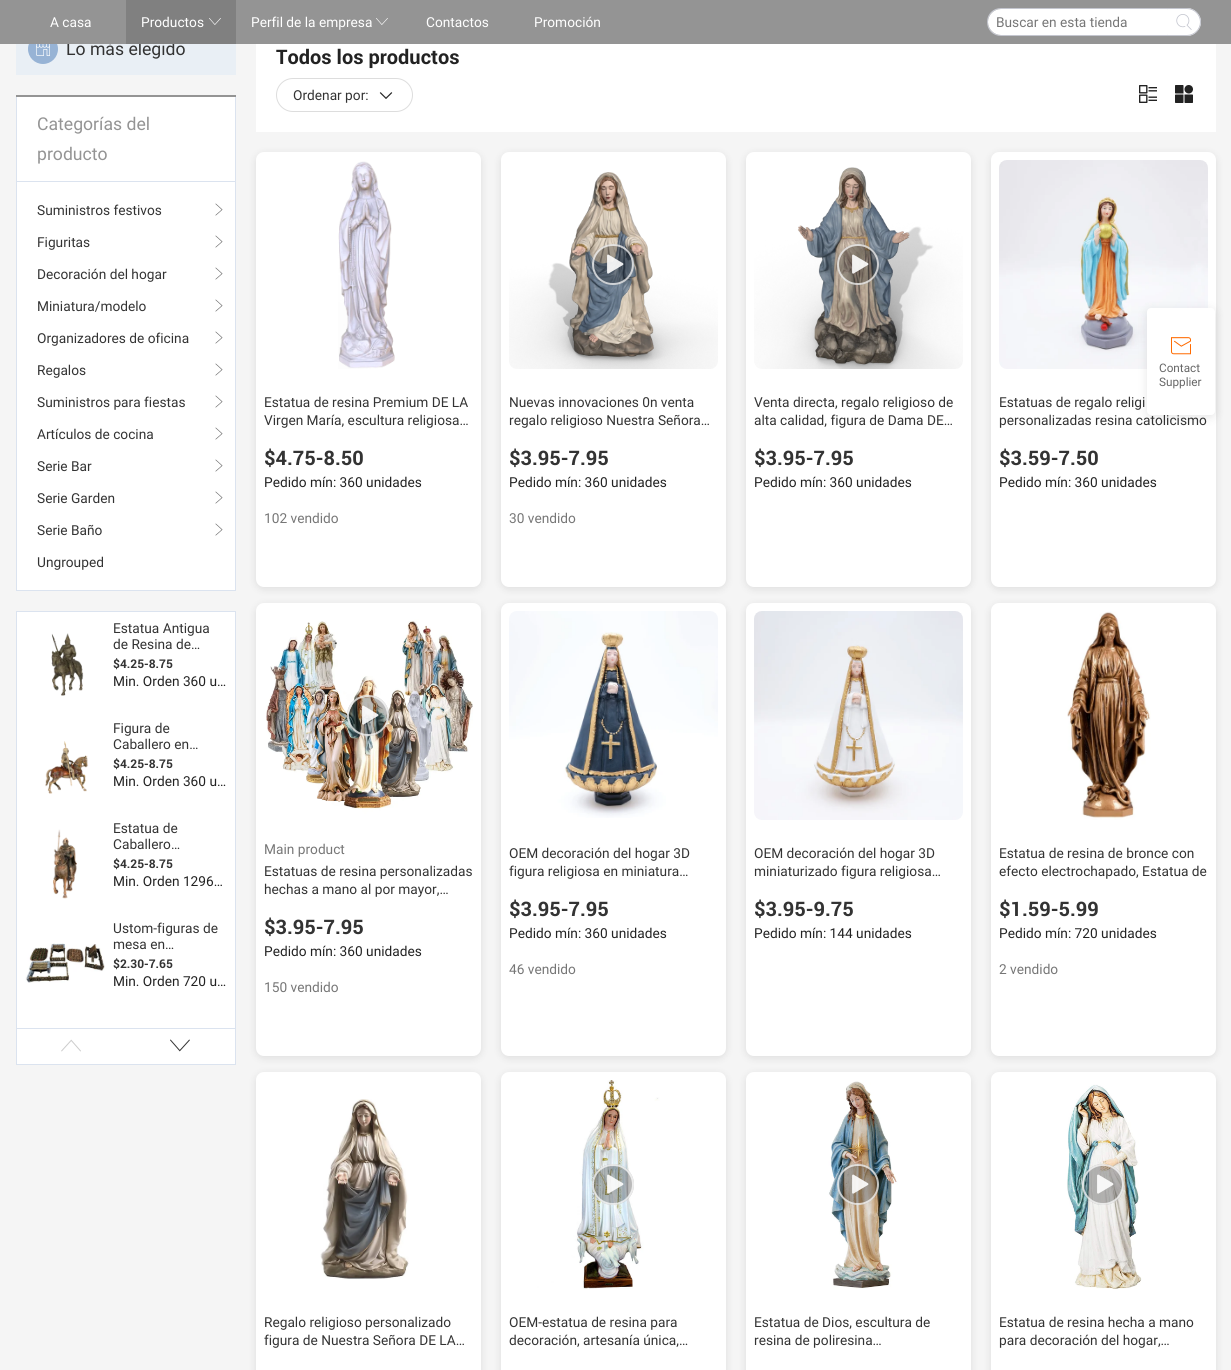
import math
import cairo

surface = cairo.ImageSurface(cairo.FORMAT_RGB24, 1231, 1370)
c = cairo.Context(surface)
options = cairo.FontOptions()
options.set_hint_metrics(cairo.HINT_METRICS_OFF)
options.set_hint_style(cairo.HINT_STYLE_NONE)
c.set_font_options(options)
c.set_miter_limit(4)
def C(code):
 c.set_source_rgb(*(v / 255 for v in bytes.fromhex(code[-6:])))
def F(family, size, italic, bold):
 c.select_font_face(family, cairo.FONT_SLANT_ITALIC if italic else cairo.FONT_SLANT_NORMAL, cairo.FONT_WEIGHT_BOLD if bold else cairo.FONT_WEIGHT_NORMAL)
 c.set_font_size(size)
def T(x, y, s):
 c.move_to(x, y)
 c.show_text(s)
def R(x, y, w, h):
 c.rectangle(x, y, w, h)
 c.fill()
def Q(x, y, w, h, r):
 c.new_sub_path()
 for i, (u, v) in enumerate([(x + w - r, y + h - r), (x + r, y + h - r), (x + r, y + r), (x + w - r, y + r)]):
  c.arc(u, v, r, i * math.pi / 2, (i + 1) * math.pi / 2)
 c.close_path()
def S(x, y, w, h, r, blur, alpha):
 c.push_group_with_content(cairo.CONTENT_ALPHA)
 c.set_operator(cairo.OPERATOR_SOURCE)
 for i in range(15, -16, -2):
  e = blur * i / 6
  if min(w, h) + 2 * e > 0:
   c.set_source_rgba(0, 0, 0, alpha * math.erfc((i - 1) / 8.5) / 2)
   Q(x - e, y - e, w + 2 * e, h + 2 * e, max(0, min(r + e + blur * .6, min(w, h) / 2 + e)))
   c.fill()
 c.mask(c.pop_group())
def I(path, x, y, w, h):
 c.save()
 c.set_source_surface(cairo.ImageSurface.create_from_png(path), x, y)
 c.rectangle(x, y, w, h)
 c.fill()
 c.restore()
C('f5f5f5')
c.paint()
C('e9eff5')
R(16,44,220,31)
C('97b3d5')
c.arc(43,49,15,0,2 * math.pi)
c.fill()
F('Roboto',18,0,0)
C('333333')
T(66,55,'Lo más elegido')
C('949494')
R(0,0,1231,44)
F('Roboto',14,0,0)
C('ffffff')
T(50,27,'A casa')
C('808080')
R(126,0,110,44)
C('ffffff')
T(141,27,'Productos')
I('1.png',209,18,12,7)
T(251,27,'Perfil de la empresa')
I('2.png',376,18,12,7)
T(426,27,'Contactos')
T(534,27,'Promoción')
C('c4c6cf')
c.set_fill_rule(cairo.FILL_RULE_EVEN_ODD)
c.new_path()
c.move_to(1001,8)
c.line_to(1168,8)
c.line_to(1168,36)
c.line_to(1001,36)
c.curve_to(993,36,987,30,987,22)
c.curve_to(987,14,993,8,1001,8)
c.close_path()
c.move_to(1001,9)
c.line_to(1168,9)
c.line_to(1168,35)
c.line_to(1001,35)
c.curve_to(994,35,988,29,988,22)
c.curve_to(988,15,994,9,1001,9)
c.close_path()
c.fill()
C('ffffff')
c.new_path()
c.move_to(1001,9)
c.line_to(1167.5,9)
c.curve_to(1168,9,1168,9,1168,9.5)
c.line_to(1168,34.5)
c.curve_to(1168,35,1168,35,1167.5,35)
c.line_to(1001,35)
c.curve_to(994,35,988,29,988,22)
c.curve_to(988,15,994,9,1001,9)
c.close_path()
c.fill()
C('767676')
T(996,27,'Buscar en esta tienda')
C('ffffff')
c.new_path()
c.move_to(1168,8)
c.line_to(1187,8)
c.curve_to(1194.5,8,1201,14.5,1201,22)
c.curve_to(1201,29.5,1194.5,36,1187,36)
c.line_to(1168,36)
c.close_path()
c.fill()
C('c4c6cf')
c.new_path()
c.move_to(1168,8)
c.line_to(1187,8)
c.curve_to(1194.5,8,1201,14.5,1201,22)
c.curve_to(1201,29.5,1194.5,36,1187,36)
c.line_to(1168,36)
c.close_path()
c.move_to(1168,9)
c.line_to(1187,9)
c.curve_to(1194,9,1200,15,1200,22)
c.curve_to(1200,29,1194,35,1187,35)
c.line_to(1168,35)
c.close_path()
c.fill()
I('3.png',1176,14,16,16)
I('4.png',36,44,14,12)
C('ffffff')
R(17,97,218,493)
C('949494')
R(16,95,220,2)
C('dbe3ef')
R(235,97,1,494)
R(16,590,220,1)
R(16,97,1,494)
R(17,181,218,1)
F('Roboto',18,0,0)
C('949494')
T(37,130,'Categorías del')
T(37,160,'producto')
F('Roboto',14,0,0)
C('333333')
T(37,215,'Suministros festivos')
I('5.png',215,203,8,13)
T(37,247,'Figuritas')
I('5.png',215,235,8,13)
T(37,279,'Decoración del hogar')
I('5.png',215,267,8,13)
T(37,311,'Miniatura/modelo')
I('5.png',215,299,8,13)
T(37,343,'Organizadores de oficina')
I('5.png',215,331,8,13)
T(37,375,'Regalos')
I('5.png',215,363,8,13)
T(37,407,'Suministros para fiestas')
I('5.png',215,395,8,13)
T(37,439,'Artículos de cocina')
I('5.png',215,427,8,13)
T(37,471,'Serie Bar')
I('5.png',215,459,8,13)
T(37,503,'Serie Garden')
I('5.png',215,491,8,13)
T(37,535,'Serie Baño')
I('5.png',215,523,8,13)
T(37,567,'Ungrouped')
C('ffffff')
c.rectangle(16.5,611.5,219,453)
c.fill_preserve()
C('dbe3ef')
c.set_line_width(1)
c.stroke()
I('6.png',51,633,33,63)
C('333333')
T(113,633,'Estatua Antigua')
T(113,649,'de Resina de…')
F('Roboto',12,0,1)
T(113,668,'$4.25-8.75')
F('Roboto',14,0,0)
C('222222')
T(113,686,'Min. Orden 360 u…')
I('7.png',45,741,44,53)
C('333333')
T(113,733,'Figura de')
T(113,749,'Caballero en…')
F('Roboto',12,0,1)
T(113,768,'$4.25-8.75')
F('Roboto',14,0,0)
C('222222')
T(113,786,'Min. Orden 360 u…')
I('8.png',53,829,24,70)
C('333333')
T(113,833,'Estatua de')
T(113,849,'Caballero…')
F('Roboto',12,0,1)
T(113,868,'$4.25-8.75')
F('Roboto',14,0,0)
C('222222')
T(113,886,'Min. Orden 1296…')
I('9.png',25,943,80,40)
C('333333')
T(113,933,'Ustom-figuras de')
T(113,949,'mesa en…')
F('Roboto',12,0,1)
T(113,968,'$2.30-7.65')
F('Roboto',14,0,0)
C('222222')
T(113,986,'Min. Orden 720 u…')
C('dbe3ef')
R(17,1028,218,1)
I('10.png',61,1039,20,13)
I('11.png',170,1039,20,13)
C('ffffff')
R(256,44,960,88)
F('Roboto',20,0,1)
C('222222')
T(276,64,'Todos los productos')
Q(276.5,78.5,136,33,16.5)
C('dddddd')
c.stroke()
F('Roboto',14,0,0)
C('333333')
T(293,100,'Ordenar por:')
I('12.png',379,92,14,7)
I('13.png',1139,85,18,18)
I('14.png',1175,85,18,18)
C('000000')
S(256,154,225,435,8,4,.1)
C('ffffff')
Q(256,152,225,435,8)
c.fill()
I('15.png',338,161,57,208)
C('333333')
T(264,407,'Estatua de resina Premium DE LA')
T(264,425,'Virgen María, escultura religiosa…')
F('Roboto',20,0,1)
T(264,465,'$4.75-8.50')
F('Roboto',14,0,0)
C('222222')
T(264,487,'Pedido mín: 360 unidades')
C('767676')
T(264,523,'102 vendido')
C('000000')
S(501,154,225,435,8,4,.1)
C('ffffff')
Q(501,152,225,435,8)
c.fill()
I('16.png',509,172,209,197)
c.set_source_rgba(0,0,0,0.27)
Q(592,244,42,41,20.5)
c.fill()
Q(593,245,40,39,19.5)
c.set_source_rgba(1,1,1,0.72)
c.set_line_width(2)
c.stroke()
I('17.png',607,254,17,20)
C('333333')
T(509,407,'Nuevas innovaciones 0n venta')
T(509,425,'regalo religioso Nuestra Señora…')
F('Roboto',20,0,1)
T(509,465,'$3.95-7.95')
F('Roboto',14,0,0)
C('222222')
T(509,487,'Pedido mín: 360 unidades')
C('767676')
T(509,523,'30 vendido')
C('000000')
S(746,154,225,435,8,4,.1)
C('ffffff')
Q(746,152,225,435,8)
c.fill()
I('18.png',754,167,209,202)
c.set_source_rgba(0,0,0,0.27)
Q(837,244,42,41,20.5)
c.fill()
Q(838,245,40,39,19.5)
c.set_source_rgba(1,1,1,0.72)
c.stroke()
I('19.png',852,254,17,20)
C('333333')
T(754,407,'Venta directa, regalo religioso de')
T(754,425,'alta calidad, figura de Dama DE…')
F('Roboto',20,0,1)
T(754,465,'$3.95-7.95')
F('Roboto',14,0,0)
C('222222')
T(754,487,'Pedido mín: 360 unidades')
C('000000')
S(991,154,225,435,8,4,.1)
C('ffffff')
Q(991,152,225,435,8)
c.fill()
I('20.png',999,160,209,209)
C('333333')
T(999,407,'Estatuas de regalo religi')
T(999,425,'personalizadas resina catolicismo')
F('Roboto',20,0,1)
T(999,465,'$3.59-7.50')
F('Roboto',14,0,0)
C('222222')
T(999,487,'Pedido mín: 360 unidades')
C('000000')
S(256,605,225,453,8,4,.1)
C('ffffff')
Q(256,603,225,453,8)
c.fill()
I('21.png',264,611,209,209)
c.set_source_rgba(0,0,0,0.27)
Q(347,695,42,41,20.5)
c.fill()
Q(348,696,40,39,19.5)
c.set_source_rgba(1,1,1,0.72)
c.stroke()
I('22.png',362,705,17,20)
C('767676')
T(264,854,'Main product')
C('333333')
T(264,876,'Estatuas de resina personalizadas')
T(264,894,'hechas a mano al por mayor,…')
F('Roboto',20,0,1)
T(264,934,'$3.95-7.95')
F('Roboto',14,0,0)
C('222222')
T(264,956,'Pedido mín: 360 unidades')
C('767676')
T(264,992,'150 vendido')
C('000000')
S(501,605,225,453,8,4,.1)
C('ffffff')
Q(501,603,225,453,8)
c.fill()
I('23.png',509,611,209,207)
C('333333')
T(509,858,'OEM decoración del hogar 3D')
T(509,876,'figura religiosa en miniatura…')
F('Roboto',20,0,1)
T(509,916,'$3.95-7.95')
F('Roboto',14,0,0)
C('222222')
T(509,938,'Pedido mín: 360 unidades')
C('767676')
T(509,974,'46 vendido')
C('000000')
S(746,605,225,453,8,4,.1)
C('ffffff')
Q(746,603,225,453,8)
c.fill()
I('24.png',754,611,209,209)
C('333333')
T(754,858,'OEM decoración del hogar 3D')
T(754,876,'miniaturizado figura religiosa…')
F('Roboto',20,0,1)
T(754,916,'$3.95-9.75')
F('Roboto',14,0,0)
C('222222')
T(754,938,'Pedido mín: 144 unidades')
C('000000')
S(991,605,225,453,8,4,.1)
C('ffffff')
Q(991,603,225,453,8)
c.fill()
I('25.png',1067,611,84,209)
C('333333')
T(999,858,'Estatua de resina de bronce con')
T(999,876,'efecto electrochapado, Estatua de')
F('Roboto',20,0,1)
T(999,916,'$1.59-5.99')
F('Roboto',14,0,0)
C('222222')
T(999,938,'Pedido mín: 720 unidades')
C('767676')
T(999,974,'2 vendido')
C('000000')
S(256,1074,225,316,8,4,.1)
C('ffffff')
Q(256,1072,225,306,8)
c.fill()
I('26.png',320,1099,89,180)
C('333333')
T(264,1327,'Regalo religioso personalizado')
T(264,1345,'figura de Nuestra Señora DE LA…')
C('000000')
S(501,1074,225,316,8,4,.1)
C('ffffff')
Q(501,1072,225,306,8)
c.fill()
I('27.png',509,1080,209,209)
c.set_source_rgba(0,0,0,0.27)
Q(592,1164,42,41,20.5)
c.fill()
Q(593,1165,40,39,19.5)
c.set_source_rgba(1,1,1,0.72)
c.stroke()
I('28.png',607,1174,17,20)
C('333333')
T(509,1327,'OEM-estatua de resina para')
T(509,1345,'decoración, artesanía única,…')
C('000000')
S(746,1074,225,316,8,4,.1)
C('ffffff')
Q(746,1072,225,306,8)
c.fill()
I('29.png',754,1080,209,209)
c.set_source_rgba(0,0,0,0.27)
Q(837,1164,42,41,20.5)
c.fill()
Q(838,1165,40,39,19.5)
c.set_source_rgba(1,1,1,0.72)
c.stroke()
I('30.png',852,1174,17,20)
C('333333')
T(754,1327,'Estatua de Dios, escultura de')
T(754,1345,'resina de poliresina…')
C('000000')
S(991,1074,225,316,8,4,.1)
C('ffffff')
Q(991,1072,225,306,8)
c.fill()
I('31.png',999,1080,209,209)
c.set_source_rgba(0,0,0,0.27)
Q(1082,1164,42,41,20.5)
c.fill()
Q(1083,1165,40,39,19.5)
c.set_source_rgba(1,1,1,0.72)
c.stroke()
I('32.png',1097,1174,17,20)
C('333333')
T(999,1327,'Estatua de resina hecha a mano')
T(999,1345,'para decoración del hogar,…')
C('000000')
S(1147,310,68,107,4,5,.1)
C('ffffff')
Q(1147,308,68,107,4)
c.fill()
I('33.png',1171,337,20,18)
F('Roboto',12,0,0)
C('666666')
T(1159,372,'Contact')
T(1159,386,'Supplier')
surface.write_to_png('o.png')
